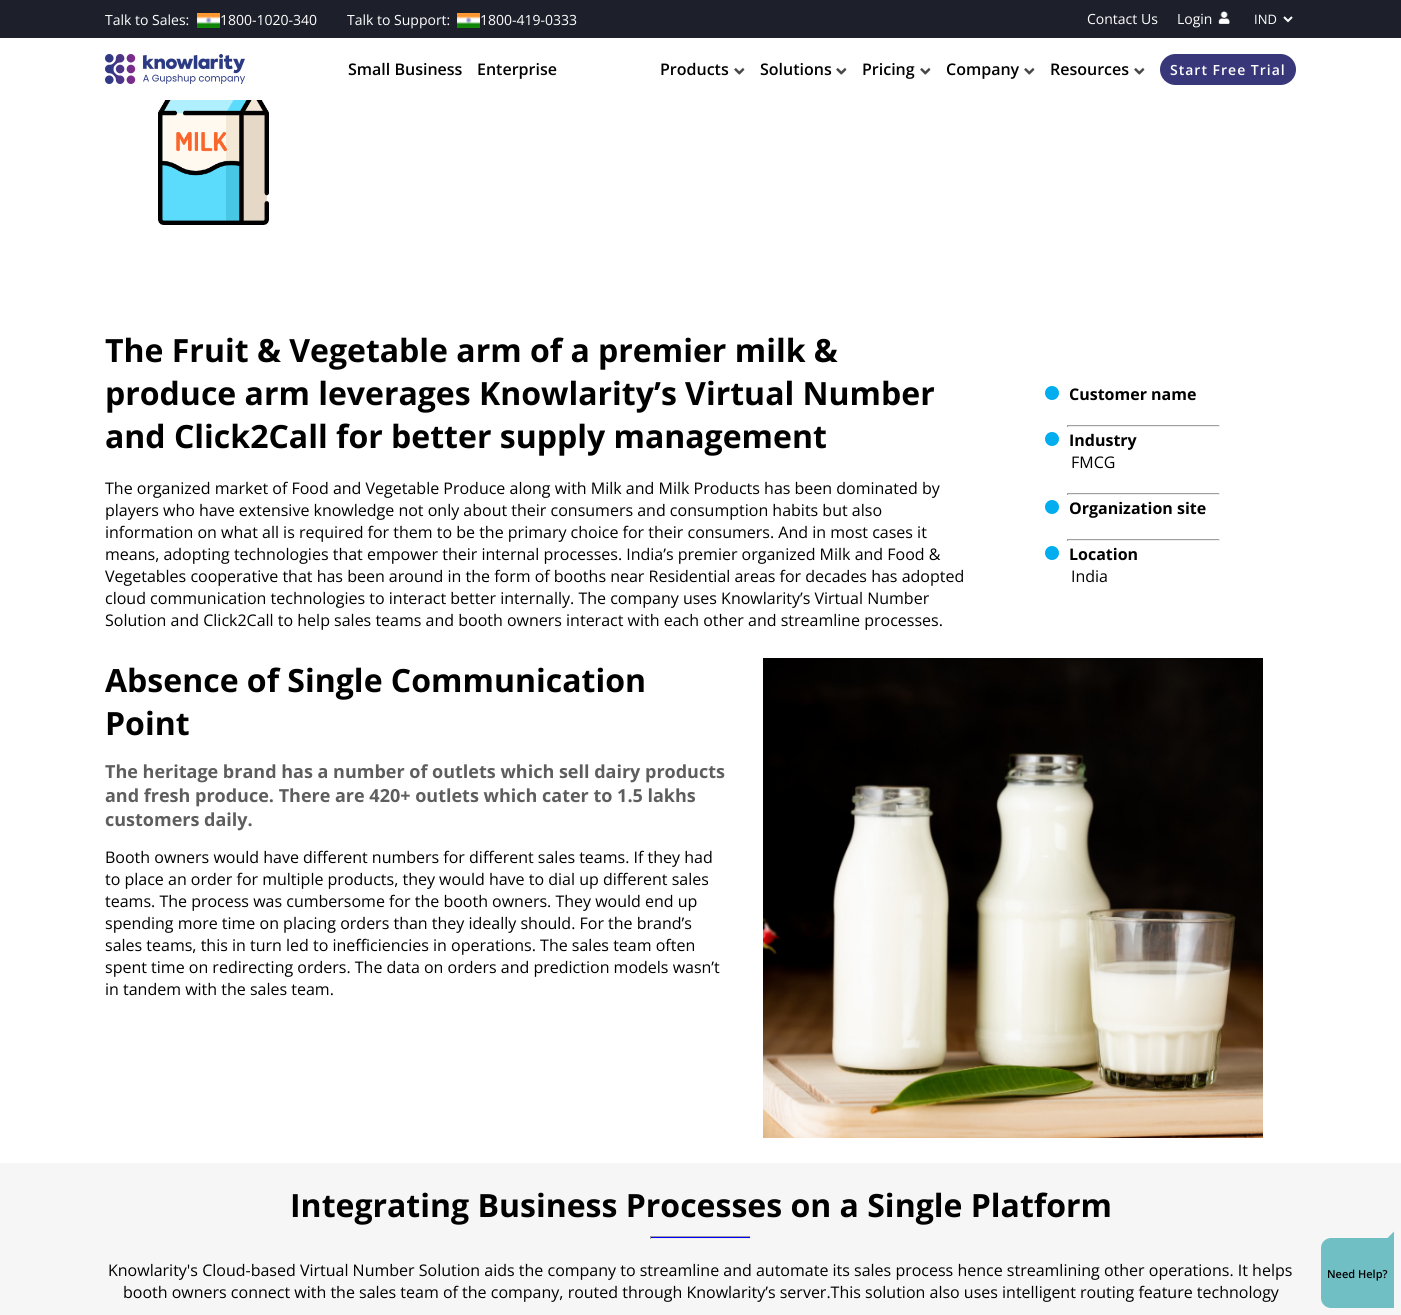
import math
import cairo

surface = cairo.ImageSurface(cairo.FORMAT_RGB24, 1401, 1315)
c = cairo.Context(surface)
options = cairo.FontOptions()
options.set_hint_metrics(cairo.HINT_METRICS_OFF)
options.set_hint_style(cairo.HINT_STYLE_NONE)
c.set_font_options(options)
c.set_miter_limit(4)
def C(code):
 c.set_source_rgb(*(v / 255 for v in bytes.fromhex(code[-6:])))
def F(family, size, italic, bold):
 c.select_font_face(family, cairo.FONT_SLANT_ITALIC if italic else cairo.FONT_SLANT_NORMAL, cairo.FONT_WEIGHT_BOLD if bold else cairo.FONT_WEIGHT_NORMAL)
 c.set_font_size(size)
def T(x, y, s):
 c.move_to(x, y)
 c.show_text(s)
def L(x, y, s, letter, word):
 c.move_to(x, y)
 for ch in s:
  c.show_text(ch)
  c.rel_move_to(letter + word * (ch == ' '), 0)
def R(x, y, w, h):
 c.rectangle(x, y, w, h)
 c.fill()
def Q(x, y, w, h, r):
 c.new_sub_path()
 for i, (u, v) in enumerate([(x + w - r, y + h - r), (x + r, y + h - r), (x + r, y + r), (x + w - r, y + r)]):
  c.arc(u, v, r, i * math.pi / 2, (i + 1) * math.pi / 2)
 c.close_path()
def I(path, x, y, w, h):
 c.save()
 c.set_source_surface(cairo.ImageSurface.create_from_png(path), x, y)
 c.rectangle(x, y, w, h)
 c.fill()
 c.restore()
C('ffffff')
c.paint()
C('1d202b')
R(0,0,1401,38)
F('Open Sans',14,0,0)
C('ffffff')
T(105,25,'Talk to Sales:')
I('1.png',197,13,23,15)
T(220,25,'1800-1020-340')
T(347,25,'Talk to Support:')
I('1.png',457,13,23,15)
T(480,25,'1800-419-0333')
T(1087,24,'Contact Us')
T(1177,24,'Login')
I('2.png',1218,11,12,13)
c.new_path()
c.move_to(1284,17)
c.line_to(1288,21)
c.line_to(1292,17)
c.stroke()
F('Open Sans',13,0,0)
T(1254,24,'IND')
I('3.png',105,54,140,30)
F('Open Sans SemiBold',16,0,0)
C('000000')
T(348,75,'Small Business')
T(477,75,'Enterprise')
T(660,75,'Products')
I('4.png',734,67,11,8)
T(760,75,'Solutions')
I('4.png',836,67,11,8)
T(862,75,'Pricing')
I('4.png',920,67,11,8)
T(946,75,'Company')
I('4.png',1024,67,11,8)
T(1050,75,'Resources')
I('4.png',1134,67,11,8)
C('38377a')
Q(1160,54,136,31,15.5)
c.fill()
F('Open Sans SemiBold',14,0,0)
C('ffffff')
L(1170,75,'Start Free Trial',1,0)
I('5.png',158,100,111,125)
F('Open Sans',32,0,1)
C('000000')
T(105,362,'The Fruit & Vegetable arm of a premier milk &')
T(105,405,'produce arm leverages Knowlarity’s Virtual Number')
T(105,448,'and Click2Call for better supply management')
F('Open Sans',16,0,0)
T(105,494,'The organized market of Food and Vegetable Produce along with Milk and Milk Products has been dominated by')
T(105,516,'players who have extensive knowledge not only about their consumers and consumption habits but also')
T(105,538,'information on what all is required for them to be the primary choice for their consumers. And in most cases it')
T(105,560,'means, adopting technologies that empower their internal processes. India’s premier organized Milk and Food &')
T(105,582,'Vegetables cooperative that has been around in the form of booths near Residential areas for decades has adopted')
T(105,604,'cloud communication technologies to interact better internally. The company uses Knowlarity’s Virtual Number')
T(105,626,'Solution and Click2Call to help sales teams and booth owners interact with each other and streamline processes.')
C('00adef')
c.new_path()
c.arc(1052,393,7,0,2 * math.pi)
c.fill()
F('Open Sans',16,0,1)
C('000000')
T(1069,400,'Customer name')
C('9f9f9f')
R(1067,425,153,1)
C('eeeeee')
R(1219,425,1,2)
R(1067,426,153,1)
C('9f9f9f')
R(1067,425,1,2)
C('00adef')
c.new_path()
c.arc(1052,439,7,0,2 * math.pi)
c.fill()
C('000000')
T(1069,446,'Industry')
F('Open Sans',16,0,0)
T(1071,468,'FMCG')
C('9f9f9f')
R(1067,493,153,1)
C('eeeeee')
R(1219,493,1,2)
R(1067,494,153,1)
C('9f9f9f')
R(1067,493,1,2)
C('00adef')
c.new_path()
c.arc(1052,507,7,0,2 * math.pi)
c.fill()
F('Open Sans',16,0,1)
C('000000')
T(1069,514,'Organization site')
C('9f9f9f')
R(1067,539,153,1)
C('eeeeee')
R(1219,539,1,2)
R(1067,540,153,1)
C('9f9f9f')
R(1067,539,1,2)
C('00adef')
c.new_path()
c.arc(1052,553,7,0,2 * math.pi)
c.fill()
C('000000')
T(1069,560,'Location')
F('Open Sans',16,0,0)
T(1071,582,'India')
F('Open Sans',32,0,1)
T(105,692,'Absence of Single Communication')
T(105,735,'Point')
F('Open Sans',18,0,1)
C('5e5e5e')
T(105,778,'The heritage brand has a number of outlets which sell dairy products')
T(105,802,'and fresh produce. There are 420+ outlets which cater to 1.5 lakhs')
T(105,826,'customers daily.')
F('Open Sans',16,0,0)
C('000000')
T(105,863,'Booth owners would have different numbers for different sales teams. If they had')
T(105,885,'to place an order for multiple products, they would have to dial up different sales')
T(105,907,'teams. The process was cumbersome for the booth owners. They would end up')
T(105,929,'spending more time on placing orders than they ideally should. For the brand’s')
T(105,951,'sales teams, this in turn led to inefficiencies in operations. The sales team often')
T(105,973,'spent time on redirecting orders. The data on orders and prediction models wasn’t')
T(105,995,'in tandem with the sales team.')
I('6.png',763,658,500,480)
C('f6f6f6')
R(0,1163,1401,152)
F('Open Sans',32,0,1)
C('000000')
T(290,1217,'Integrating Business Processes on a Single Platform')
C('0000ff')
R(650,1237,101,1)
C('9f9f9f')
R(650,1236,101,1)
C('eeeeee')
R(750,1236,1,3)
R(650,1238,101,1)
C('9f9f9f')
R(650,1236,1,3)
F('Open Sans',16,0,0)
C('000000')
T(108,1276,'Knowlarity\'s Cloud-based Virtual Number Solution aids the company to streamline and automate its sales process hence streamlining other operations. It helps')
T(123,1298,'booth owners connect with the sales team of the company, routed through Knowlarity’s server.This solution also uses intelligent routing feature technology')
C('6fbfc4')
c.new_path()
c.move_to(1331,1238)
c.line_to(1394,1238)
c.line_to(1394,1308)
c.line_to(1331,1308)
c.curve_to(1325.5,1308,1321,1303.5,1321,1298)
c.line_to(1321,1248)
c.curve_to(1321,1242.5,1325.5,1238,1331,1238)
c.close_path()
c.fill()
c.new_path()
c.move_to(1387,1238.5)
c.line_to(1394,1231.5)
c.line_to(1394,1238.5)
c.close_path()
c.fill()
F('Open Sans SemiBold',11,0,0)
C('000000')
T(1327,1278,'Need Help?')
surface.write_to_png('o.png')
